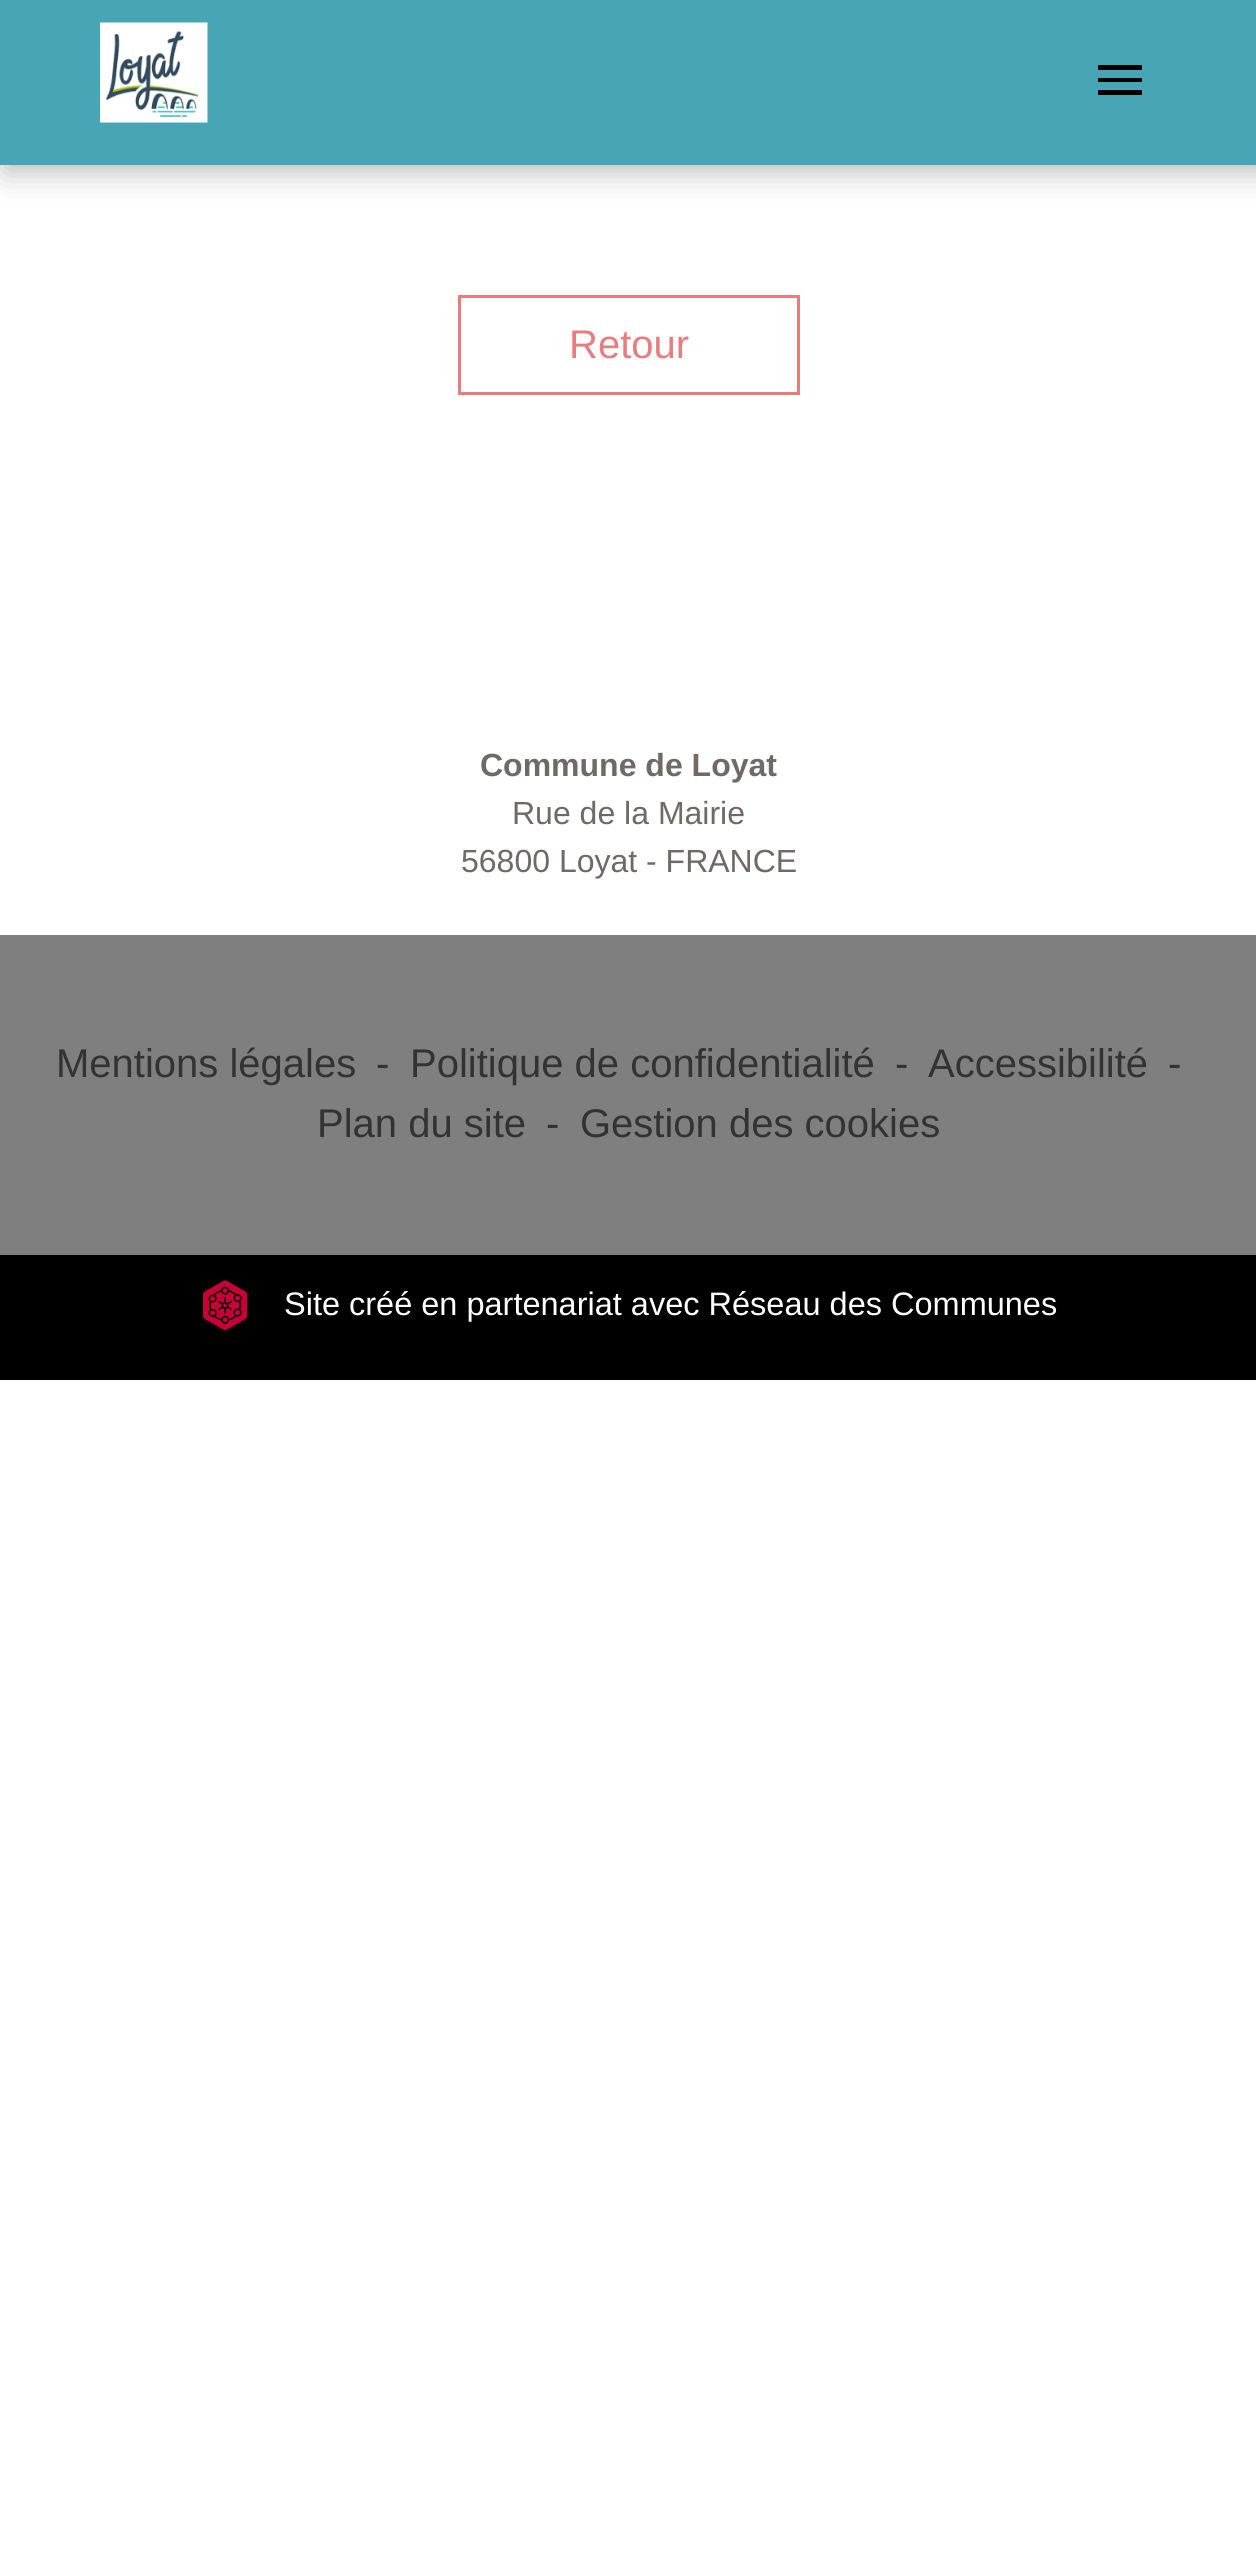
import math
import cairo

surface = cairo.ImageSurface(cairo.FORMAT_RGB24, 1256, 2565)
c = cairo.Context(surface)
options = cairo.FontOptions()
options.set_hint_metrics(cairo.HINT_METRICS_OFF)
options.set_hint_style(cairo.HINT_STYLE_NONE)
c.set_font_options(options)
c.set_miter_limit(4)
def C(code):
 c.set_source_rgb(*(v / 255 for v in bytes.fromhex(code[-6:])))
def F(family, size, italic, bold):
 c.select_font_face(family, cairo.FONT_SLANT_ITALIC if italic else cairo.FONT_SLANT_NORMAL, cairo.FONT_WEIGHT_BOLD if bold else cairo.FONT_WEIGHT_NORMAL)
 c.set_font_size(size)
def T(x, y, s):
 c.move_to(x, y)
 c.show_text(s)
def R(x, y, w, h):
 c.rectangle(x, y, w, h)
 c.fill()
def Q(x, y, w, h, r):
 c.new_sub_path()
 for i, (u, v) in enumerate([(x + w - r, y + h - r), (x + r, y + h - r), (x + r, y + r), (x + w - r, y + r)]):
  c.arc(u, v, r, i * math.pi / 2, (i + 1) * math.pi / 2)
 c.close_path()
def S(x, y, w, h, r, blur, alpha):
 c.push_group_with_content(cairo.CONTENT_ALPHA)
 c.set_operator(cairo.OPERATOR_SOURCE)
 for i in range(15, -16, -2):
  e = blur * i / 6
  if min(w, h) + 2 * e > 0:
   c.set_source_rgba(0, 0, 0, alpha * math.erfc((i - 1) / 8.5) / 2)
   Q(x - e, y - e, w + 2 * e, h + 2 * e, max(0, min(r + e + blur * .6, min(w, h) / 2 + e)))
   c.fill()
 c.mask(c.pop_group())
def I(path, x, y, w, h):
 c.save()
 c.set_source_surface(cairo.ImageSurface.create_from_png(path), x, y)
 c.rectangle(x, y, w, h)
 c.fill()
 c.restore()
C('ffffff')
c.paint()
C('000000')
S(5,5,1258,165,0,16,.3)
C('47a5b6')
R(0,0,1256,165)
I('1.png',100,22,108,101)
C('000000')
c.new_path()
c.move_to(1098,65)
c.line_to(1142,65)
c.line_to(1142,70)
c.line_to(1098,70)
c.close_path()
c.move_to(1098,82)
c.line_to(1098,78)
c.line_to(1142,78)
c.line_to(1142,82)
c.close_path()
c.move_to(1098,95)
c.line_to(1098,90)
c.line_to(1142,90)
c.line_to(1142,95)
c.close_path()
c.fill()
c.rectangle(459.5,296.5,339,97)
C('e97d7d')
c.set_line_width(3)
c.stroke()
F('Liberation Sans',40,0,0)
T(569,358,'Retour')
F('Liberation Sans',32,0,1)
C('716868')
T(480,776,'Commune de Loyat')
F('Liberation Sans',32,0,0)
T(512,824,'Rue de la Mairie')
T(461,872,'56800 Loyat - FRANCE')
C('7f7f80')
R(0,935,1256,320)
F('Liberation Sans',40,0,0)
C('333333')
T(56,1077,'Mentions légales')
T(376,1077,'-')
T(410,1077,'Politique de confidentialité')
T(895,1077,'-')
T(928,1077,'Accessibilité')
T(1168,1077,'-')
T(317,1137,'Plan du site')
T(546,1137,'-')
T(580,1137,'Gestion des cookies')
C('000000')
R(0,1255,1256,125)
I('2.png',203,1280,45,50)
F('Liberation Sans',32.5,0,0)
C('ffffff')
T(284,1315,'Site créé en partenariat avec Réseau des Communes')
surface.write_to_png('o.png')
